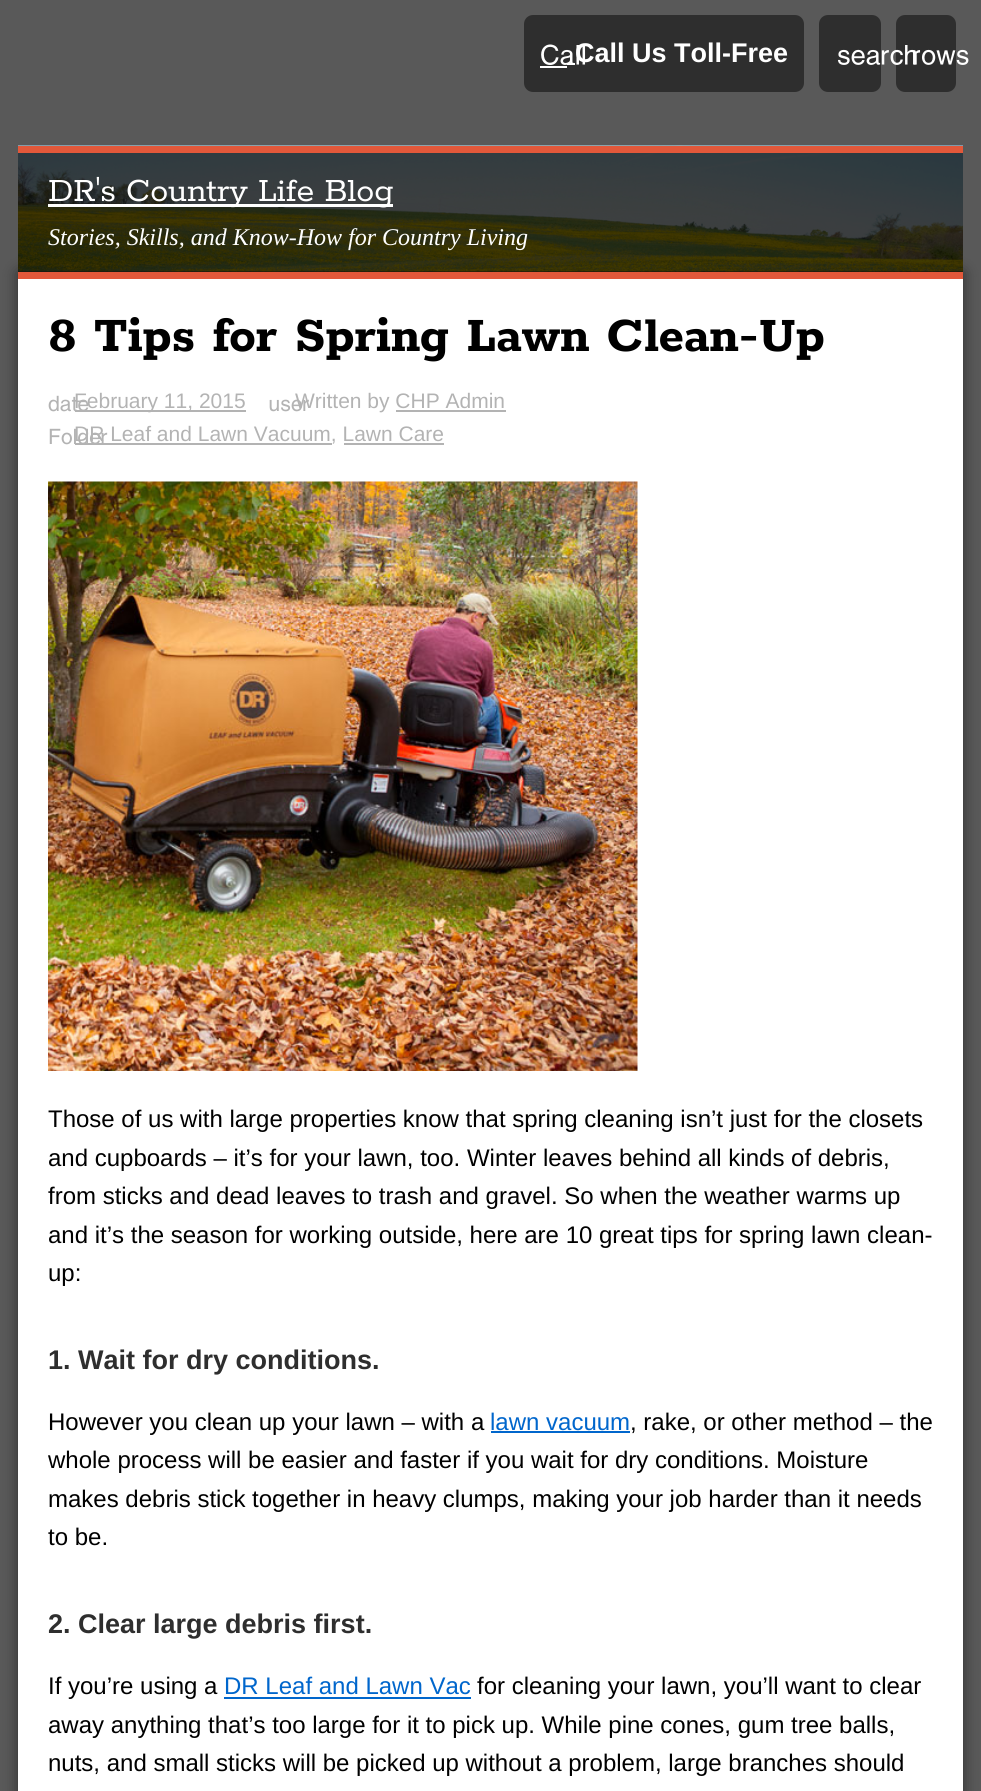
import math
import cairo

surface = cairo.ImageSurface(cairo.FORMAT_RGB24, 981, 1791)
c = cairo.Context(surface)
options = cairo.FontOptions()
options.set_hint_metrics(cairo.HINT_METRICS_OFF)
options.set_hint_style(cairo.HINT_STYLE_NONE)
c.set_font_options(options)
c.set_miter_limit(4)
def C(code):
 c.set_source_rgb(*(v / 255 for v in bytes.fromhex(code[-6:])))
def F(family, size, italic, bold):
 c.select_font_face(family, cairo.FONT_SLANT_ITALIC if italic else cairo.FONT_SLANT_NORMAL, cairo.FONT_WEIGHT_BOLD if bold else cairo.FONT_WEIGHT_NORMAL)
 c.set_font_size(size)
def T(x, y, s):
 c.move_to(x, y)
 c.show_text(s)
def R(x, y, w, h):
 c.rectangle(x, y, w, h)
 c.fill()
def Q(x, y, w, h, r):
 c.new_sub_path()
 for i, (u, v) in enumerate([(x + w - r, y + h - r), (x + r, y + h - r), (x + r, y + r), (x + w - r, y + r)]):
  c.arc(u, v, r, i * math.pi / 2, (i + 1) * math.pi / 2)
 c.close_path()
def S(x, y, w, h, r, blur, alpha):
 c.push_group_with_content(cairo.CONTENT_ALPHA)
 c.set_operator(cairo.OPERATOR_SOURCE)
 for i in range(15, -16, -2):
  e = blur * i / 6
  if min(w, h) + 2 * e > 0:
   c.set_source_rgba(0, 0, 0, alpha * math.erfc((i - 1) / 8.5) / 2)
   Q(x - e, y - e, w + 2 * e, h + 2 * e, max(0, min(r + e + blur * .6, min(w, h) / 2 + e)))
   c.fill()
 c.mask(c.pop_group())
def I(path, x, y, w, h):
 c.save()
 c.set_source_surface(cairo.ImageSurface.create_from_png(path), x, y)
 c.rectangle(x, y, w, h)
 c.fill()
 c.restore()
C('595959')
c.paint()
C('2e2e2e')
Q(524,15,280,77,9)
c.fill()
F('Liberation Sans',27,0,1)
C('ffffff')
T(575,62,'Call Us Toll-Free')
R(567,63,8,2)
I('1.png',541,44,45,21)
R(540,66,27,2)
C('2e2e2e')
Q(819,15,62,77,9)
c.fill()
Q(896,15,60,77,9)
c.fill()
I('2.png',838,45,79,20)
I('3.png',913,49,56,16)
C('000000')
S(18,272,945,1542,0,7.5,.5)
I('4.png',18,145,945,127)
C('e2583a')
R(18,146,945,7)
c.set_source_rgba(0,0,0,0.75)
R(18,153,945,119)
C('ffffff')
R(48,204,345,3)
F('Rokkitt',36,0,0)
T(48,201,'DR\'s Country Life Blog')
F('Liberation Serif',24,1,0)
T(48,245,'Stories, Skills, and Know-How for Country Living')
C('e2583a')
R(18,272,945,7)
C('ffffff')
R(18,279,945,1512)
F('Rokkitt',54,0,1)
C('000000')
T(48,351,'8 Tips for Spring Lawn Clean-Up')
C('b3b3b3')
R(75,410,171,2)
F('Liberation Sans',21,0,0)
T(74,408,'February 11, 2015')
I('5.png',48,395,41,17)
T(295,408,'Written by CHP Admin')
I('6.png',269,399,40,13)
R(396,410,110,2)
R(75,443,257,2)
T(74,441,'DR Leaf and Lawn Vacuum, Lawn Care')
I('7.png',49,428,59,17)
R(344,443,100,2)
I('8.png',48,481,590,590)
F('Liberation Sans',24,0,0)
C('000000')
T(48,1127,'Those of us with large properties know that spring cleaning isn’t just for the closets')
T(48,1166,'and cupboards – it’s for your lawn, too. Winter leaves behind all kinds of debris,')
T(48,1204,'from sticks and dead leaves to trash and gravel. So when the weather warms up')
T(48,1243,'and it’s the season for working outside, here are 10 great tips for spring lawn clean-')
T(48,1281,'up:')
F('Liberation Sans',27,0,1)
C('2e2e2e')
T(48,1369,'1. Wait for dry conditions.')
F('Liberation Sans',24,0,0)
C('000000')
T(48,1430,'However you clean up your lawn – with a')
C('0066cc')
T(490,1430,'lawn vacuum')
R(491,1431,139,2)
C('000000')
T(630,1430,', rake, or other method – the')
T(48,1468,'whole process will be easier and faster if you wait for dry conditions. Moisture')
T(48,1507,'makes debris stick together in heavy clumps, making your job harder than it needs')
T(48,1545,'to be.')
F('Liberation Sans',27,0,1)
C('2e2e2e')
T(48,1633,'2. Clear large debris first.')
F('Liberation Sans',24,0,0)
C('000000')
T(48,1694,'If you’re using a')
C('0066cc')
T(224,1694,'DR Leaf and Lawn Vac')
R(224,1697,247,2)
C('000000')
T(477,1694,'for cleaning your lawn, you’ll want to clear')
T(48,1733,'away anything that’s too large for it to pick up. While pine cones, gum tree balls,')
T(48,1771,'nuts, and small sticks will be picked up without a problem, large branches should')
surface.write_to_png('o.png')
